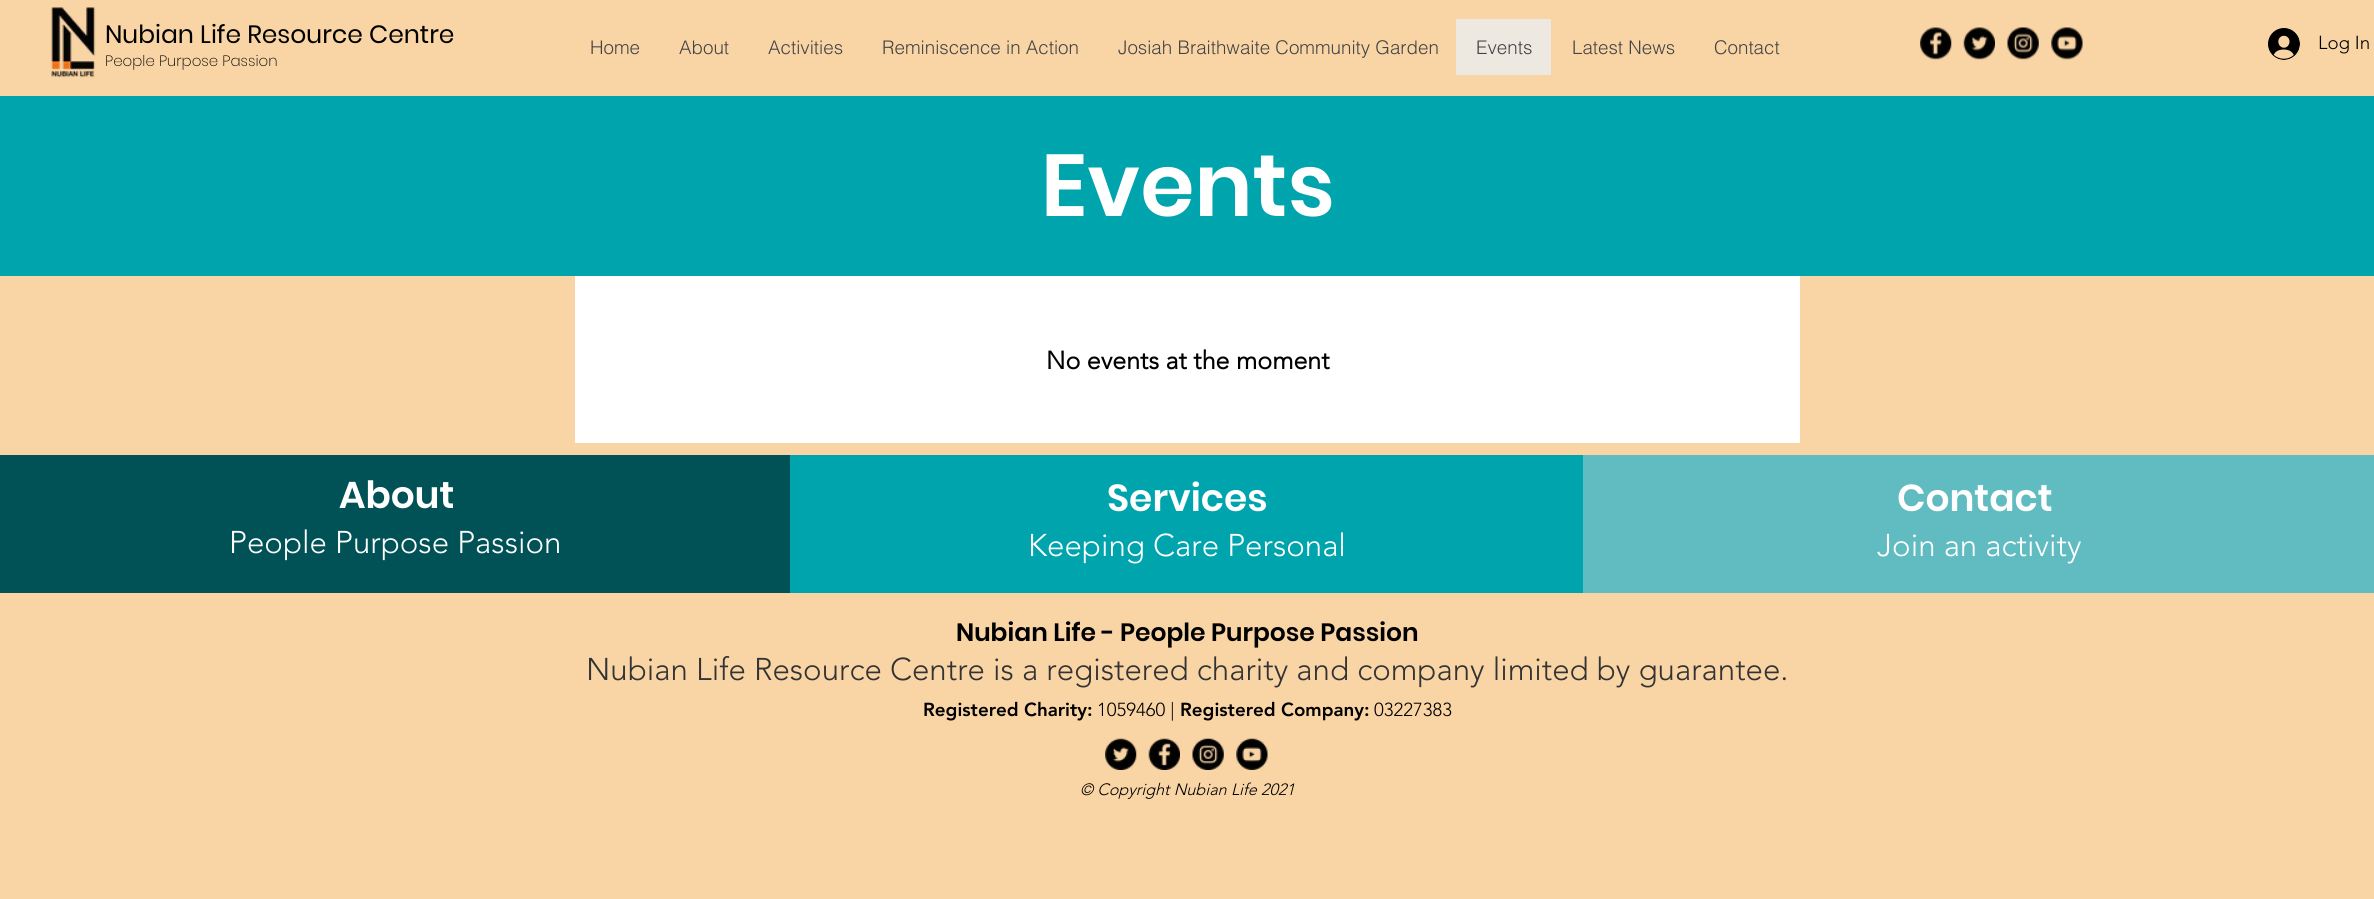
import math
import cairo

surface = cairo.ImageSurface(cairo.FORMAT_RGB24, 2374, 899)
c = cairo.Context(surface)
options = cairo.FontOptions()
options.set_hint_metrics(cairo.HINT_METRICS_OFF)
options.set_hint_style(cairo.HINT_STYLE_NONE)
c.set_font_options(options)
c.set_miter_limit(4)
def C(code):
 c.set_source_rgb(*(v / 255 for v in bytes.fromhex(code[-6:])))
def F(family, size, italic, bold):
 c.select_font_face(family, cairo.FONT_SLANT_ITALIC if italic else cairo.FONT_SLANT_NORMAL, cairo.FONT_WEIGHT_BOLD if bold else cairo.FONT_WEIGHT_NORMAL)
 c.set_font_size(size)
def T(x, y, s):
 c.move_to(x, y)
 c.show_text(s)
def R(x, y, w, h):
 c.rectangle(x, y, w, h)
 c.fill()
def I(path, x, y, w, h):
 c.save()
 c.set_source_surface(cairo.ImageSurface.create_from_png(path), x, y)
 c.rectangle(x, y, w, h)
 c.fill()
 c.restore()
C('f9d5a6')
c.paint()
I('1.png',51,7,45,71)
F('Poppins',25,0,0)
C('000000')
T(105,43,'Nubian Life Resource Centre')
F('Poppins ExtraLight',15,0,0)
T(105,66,'People Purpose Passion')
F('helvetica Light',18.75,0,0)
C('444444')
T(590,54,'Home')
T(679,54,'About')
T(768,54,'Activities')
T(882,54,'Reminiscence in Action')
T(1118,54,'Josiah Braithwaite Community Garden')
C('ede9e1')
R(1456,19,95,56)
C('444444')
T(1476,54,'Events')
T(1572,54,'Latest News')
T(1714,54,'Contact')
I('2.png',1920,27,32,33)
I('3.png',1963,27,32,33)
I('4.png',2007,27,32,33)
I('5.png',2051,27,32,33)
I('6.png',2268,28,32,32)
F('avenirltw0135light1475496 Light',18.75,0,0)
C('000000')
T(2318,49,'Log In')
C('00a4ad')
R(0,96,2374,180)
F('Poppins SemiBold',87.5,0,0)
C('ffffff')
T(1041,216,'Events')
R(575,276,1225,167)
F('avenirltw0135light1475496',25,0,1)
C('000000')
T(1046,369,'No events at the moment')
C('005257')
R(0,455,790,138)
F('Poppins SemiBold',37.5,0,0)
C('ffffff')
T(339,508,'About')
F('avenirltw0135light1475496 Light',31.25,0,0)
T(229,553,'People Purpose Passion')
C('00a4ad')
R(790,455,793,138)
F('Poppins SemiBold',37.5,0,0)
C('ffffff')
T(1107,511,'Services')
F('avenirltw0135light1475496 Light',31.25,0,0)
T(1028,556,'Keeping Care Personal')
C('61bcc2')
R(1583,455,791,138)
F('Poppins SemiBold',37.5,0,0)
C('ffffff')
T(1897,511,'Contact')
F('avenirltw0135light1475496 Light',31.25,0,0)
T(1877,556,'Join an activity')
F('Poppins SemiBold',25,0,0)
C('000000')
T(956,641,'Nubian Life - People Purpose Passion')
F('avenirltw0135light1475496 Light',31.25,0,0)
C('333333')
T(586,680,'Nubian Life Resource Centre is a registered charity and company limited by guarantee.')
F('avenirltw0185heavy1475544 Black',18.75,0,0)
C('000000')
T(923,716,'Registered Charity:')
F('avenirltw0135light1475496 Light',18.75,0,0)
T(1097,716,'1059460 |')
F('avenirltw0185heavy1475544 Black',18.75,0,0)
T(1180,716,'Registered Company:')
F('avenirltw0135light1475496 Light',18.75,0,0)
T(1374,716,'03227383')
I('7.png',1105,738,32,32)
I('8.png',1148,738,32,32)
I('9.png',1192,738,32,32)
I('10.png',1236,738,32,32)
F('avenirltw0135light1475496 Light',16.25,1,0)
T(1080,795,'© Copyright Nubian Life 2021')
surface.write_to_png('o.png')
